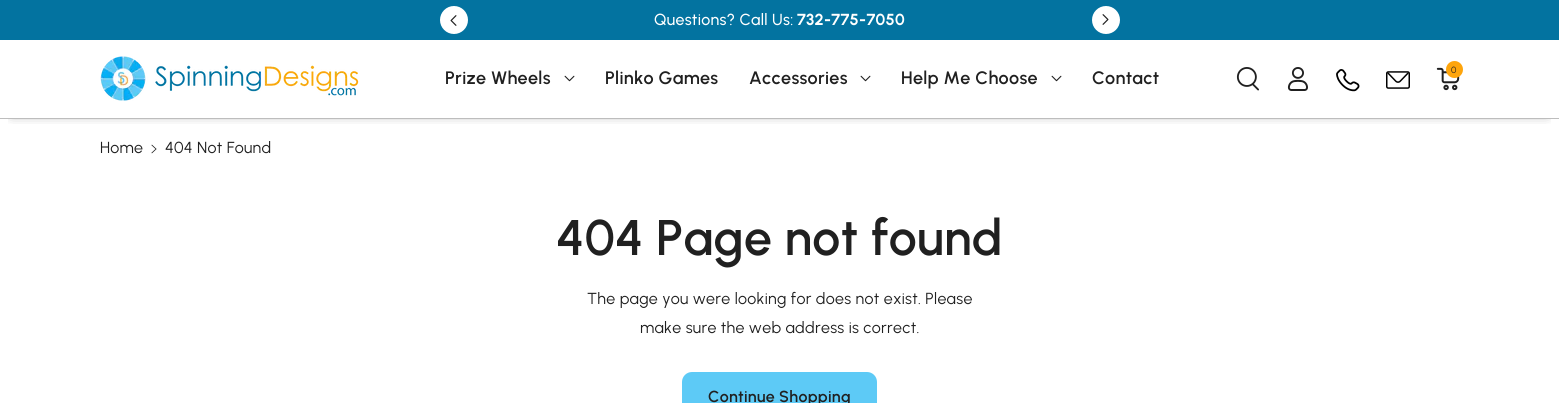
import math
import cairo

surface = cairo.ImageSurface(cairo.FORMAT_RGB24, 1559, 403)
c = cairo.Context(surface)
options = cairo.FontOptions()
options.set_hint_metrics(cairo.HINT_METRICS_OFF)
options.set_hint_style(cairo.HINT_STYLE_NONE)
c.set_font_options(options)
c.set_miter_limit(4)
def C(code):
 c.set_source_rgb(*(v / 255 for v in bytes.fromhex(code[-6:])))
def F(family, size, italic, bold):
 c.select_font_face(family, cairo.FONT_SLANT_ITALIC if italic else cairo.FONT_SLANT_NORMAL, cairo.FONT_WEIGHT_BOLD if bold else cairo.FONT_WEIGHT_NORMAL)
 c.set_font_size(size)
def L(x, y, s, letter, word):
 c.move_to(x, y)
 for ch in s:
  c.show_text(ch)
  c.rel_move_to(letter + word * (ch == ' '), 0)
def R(x, y, w, h):
 c.rectangle(x, y, w, h)
 c.fill()
def Q(x, y, w, h, r):
 c.new_sub_path()
 for i, (u, v) in enumerate([(x + w - r, y + h - r), (x + r, y + h - r), (x + r, y + r), (x + w - r, y + r)]):
  c.arc(u, v, r, i * math.pi / 2, (i + 1) * math.pi / 2)
 c.close_path()
def S(x, y, w, h, r, blur, alpha):
 c.push_group_with_content(cairo.CONTENT_ALPHA)
 c.set_operator(cairo.OPERATOR_SOURCE)
 for i in range(15, -16, -2):
  e = blur * i / 6
  if min(w, h) + 2 * e > 0:
   c.set_source_rgba(0, 0, 0, alpha * math.erfc((i - 1) / 8.5) / 2)
   Q(x - e, y - e, w + 2 * e, h + 2 * e, max(0, min(r + e + blur * .6, min(w, h) / 2 + e)))
   c.fill()
 c.mask(c.pop_group())
def I(path, x, y, w, h):
 c.save()
 c.set_source_surface(cairo.ImageSurface.create_from_png(path), x, y)
 c.rectangle(x, y, w, h)
 c.fill()
 c.restore()
C('ffffff')
c.paint()
C('0373a0')
R(0,0,1559,40)
C('ffffff')
c.arc(454,20,14,0,2 * math.pi)
c.fill()
I('1.png',450,15,7,11)
F('Urbanist Medium',16,0,0)
L(654,25,'Questions? Call Us:',.3,0)
F('Urbanist',16,0,1)
L(797,25,'732-775-7050',.3,0)
c.new_path()
c.arc(1106,20,14,0,2 * math.pi)
c.fill()
I('2.png',1102,14,7,11)
c.save()
c.rectangle(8,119,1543,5)
c.clip()
C('121212')
S(12,58,1535,55,0,6,.6)
c.restore()
C('bdbdbd')
R(0,118,1559,1)
I('3.png',100,56,259,45)
F('Urbanist SemiBold',18,0,0)
C('202020')
L(445,84,'Prize Wheels',.3,0)
I('4.png',564,75,11,7)
L(605,84,'Plinko Games',.3,0)
L(749,84,'Accessories',.3,0)
I('4.png',860,75,11,7)
L(901,84,'Help Me Choose',.3,0)
I('4.png',1051,75,11,7)
L(1092,84,'Contact',.3,0)
I('5.png',1236,67,23,24)
I('6.png',1287,67,21,24)
I('7.png',1336,69,24,23)
I('8.png',1386,71,24,18)
I('9.png',1436,67,24,24)
C('fea50c')
c.arc(1454.5,69.5,8.5,0,2 * math.pi)
c.fill()
F('Urbanist',9,0,0)
C('202020')
L(1451,73,'0',.3,0)
F('Urbanist',16,0,0)
L(100,153,'Home',.3,0)
I('10.png',151,144,6,10)
L(165,153,'404 Not Found',.3,0)
F('Urbanist SemiBold',50,0,0)
L(556,255,'404 Page not found',.3,0)
F('Urbanist',16,0,0)
L(587,304,'The page you were looking for does not exist. Please',.3,0)
L(640,333,'make sure the web address is correct.',.3,0)
C('5dcaf6')
Q(682,372,195,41,10)
c.fill()
F('Urbanist SemiBold',16,0,0)
C('202020')
L(708,402,'Continue Shopping',.3,0)
surface.write_to_png('o.png')
